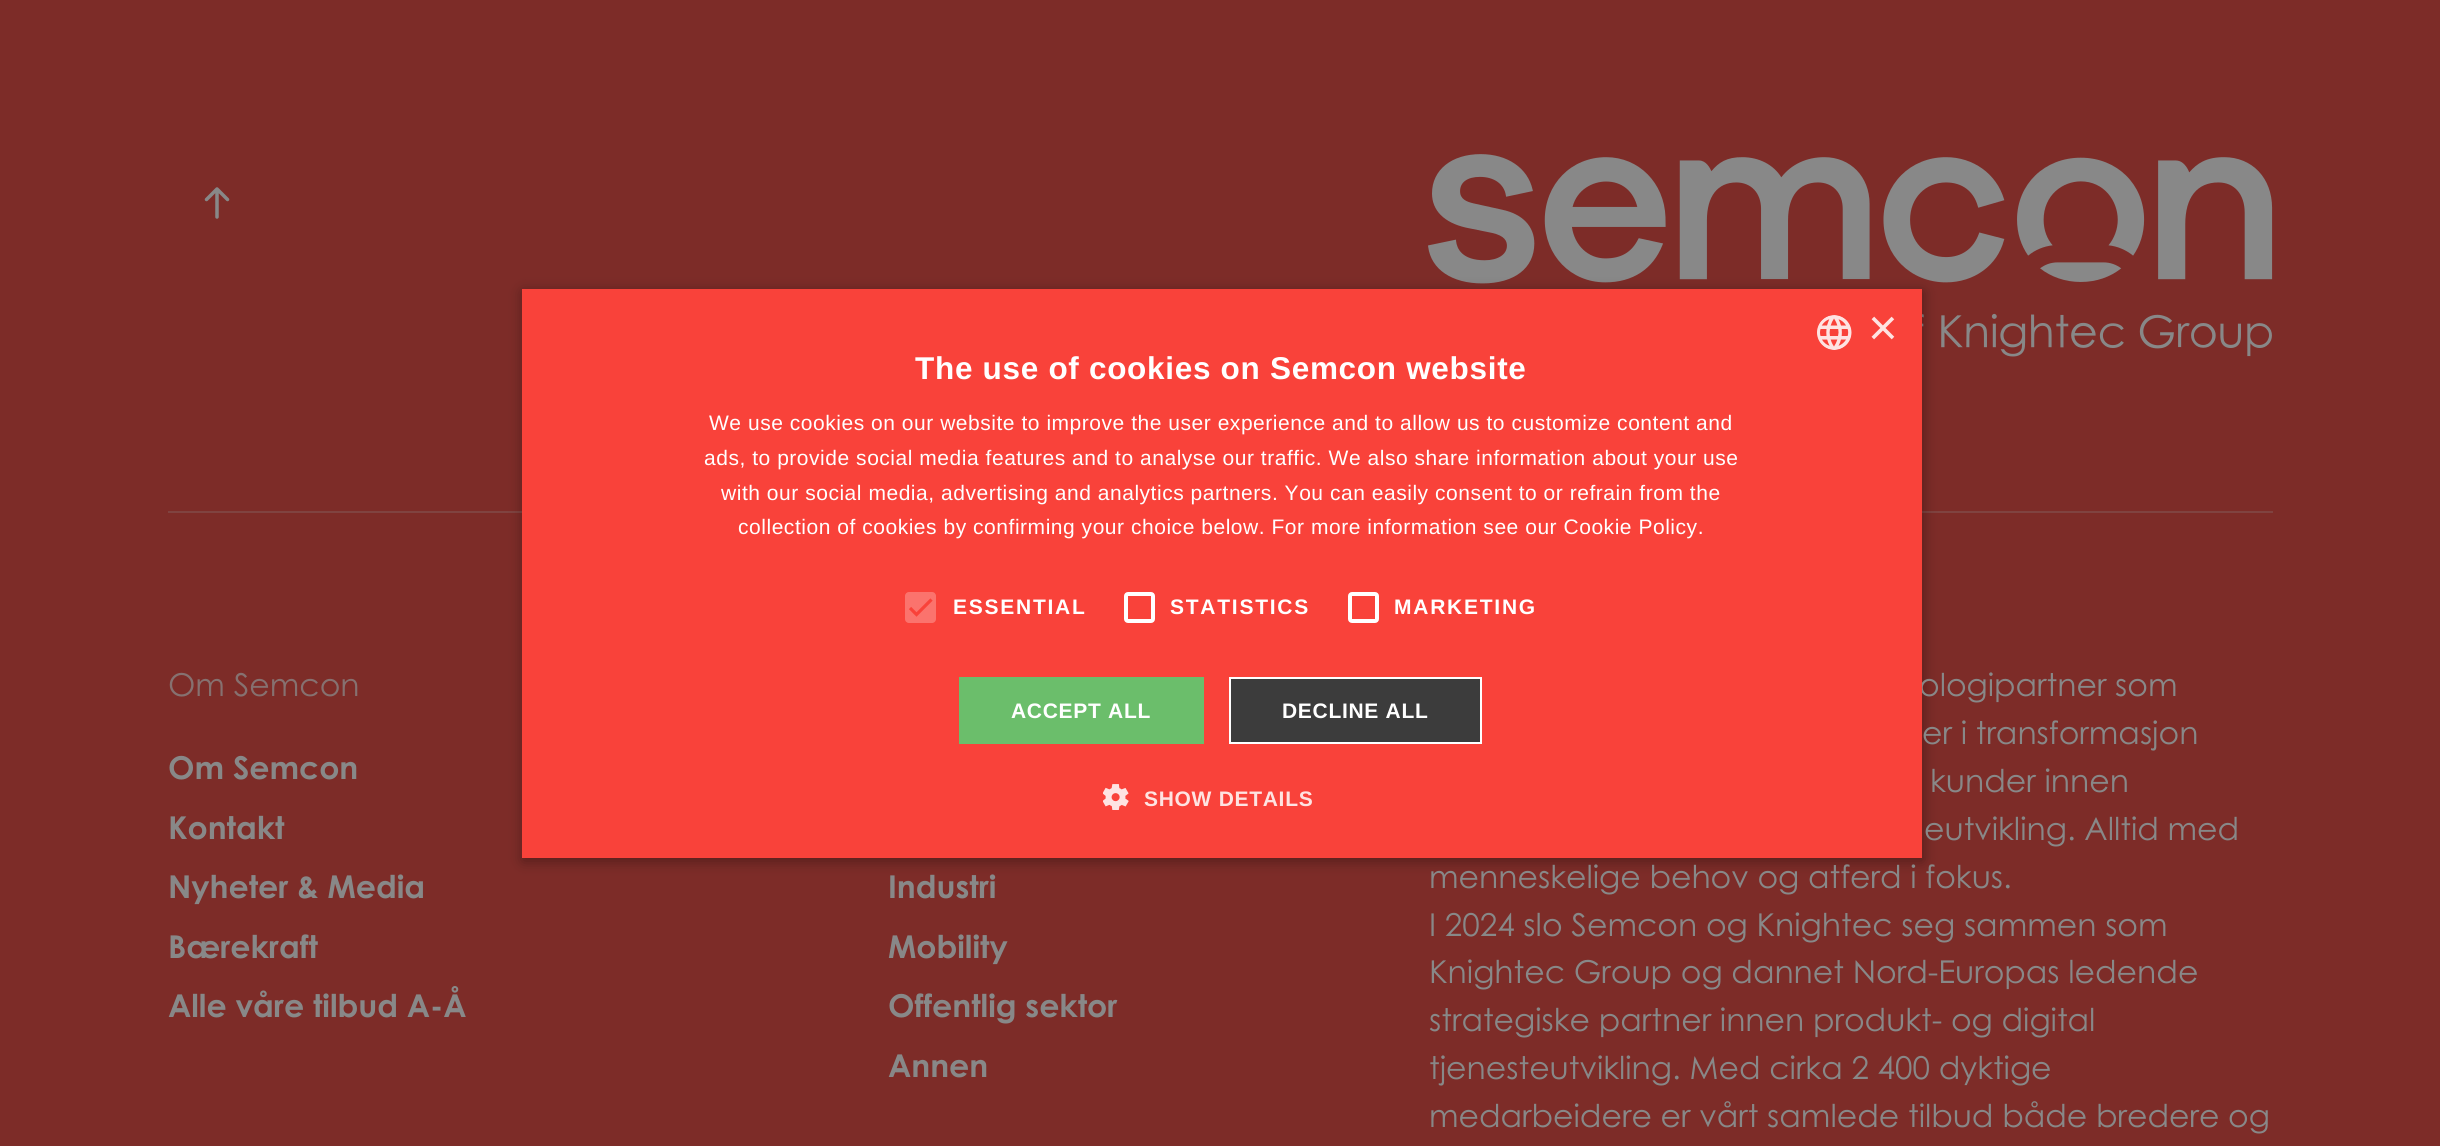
import math
import cairo

surface = cairo.ImageSurface(cairo.FORMAT_RGB24, 2440, 1146)
c = cairo.Context(surface)
options = cairo.FontOptions()
options.set_hint_metrics(cairo.HINT_METRICS_OFF)
options.set_hint_style(cairo.HINT_STYLE_NONE)
c.set_font_options(options)
c.set_miter_limit(4)
def C(code):
 c.set_source_rgb(*(v / 255 for v in bytes.fromhex(code[-6:])))
def F(family, size, italic, bold):
 c.select_font_face(family, cairo.FONT_SLANT_ITALIC if italic else cairo.FONT_SLANT_NORMAL, cairo.FONT_WEIGHT_BOLD if bold else cairo.FONT_WEIGHT_NORMAL)
 c.set_font_size(size)
def T(x, y, s):
 c.move_to(x, y)
 c.show_text(s)
def L(x, y, s, letter, word):
 c.move_to(x, y)
 for ch in s:
  c.show_text(ch)
  c.rel_move_to(letter + word * (ch == ' '), 0)
def R(x, y, w, h):
 c.rectangle(x, y, w, h)
 c.fill()
def Q(x, y, w, h, r):
 c.new_sub_path()
 for i, (u, v) in enumerate([(x + w - r, y + h - r), (x + r, y + h - r), (x + r, y + r), (x + w - r, y + r)]):
  c.arc(u, v, r, i * math.pi / 2, (i + 1) * math.pi / 2)
 c.close_path()
def S(x, y, w, h, r, blur, alpha):
 c.push_group_with_content(cairo.CONTENT_ALPHA)
 c.set_operator(cairo.OPERATOR_SOURCE)
 for i in range(15, -16, -2):
  e = blur * i / 6
  if min(w, h) + 2 * e > 0:
   c.set_source_rgba(0, 0, 0, alpha * math.erfc((i - 1) / 8.5) / 2)
   Q(x - e, y - e, w + 2 * e, h + 2 * e, max(0, min(r + e + blur * .6, min(w, h) / 2 + e)))
   c.fill()
 c.mask(c.pop_group())
def I(path, x, y, w, h):
 c.save()
 c.set_source_surface(cairo.ImageSurface.create_from_png(path), x, y)
 c.rectangle(x, y, w, h)
 c.fill()
 c.restore()
C('7d2c28')
c.paint()
I('3.png',1428,154,845,203)
C('804340')
R(168,511,2105,2)
C('000000')
S(523,292,1400,569,0,7,.35)
F('Century Gothic Medium',31.5,0,0)
C('888888')
T(1919,696,'ologipartner som')
C('f9423a')
R(522,289,1400,569)
I('1.png',1817,315,35,35)
F('Liberation Sans',51,0,0)
C('fee3e1')
T(1868,345,'×')
F('Liberation Sans',31.5,0,1)
C('ffffff')
L(915,379,'The use of cookies on Semcon website',.7,0)
F('Liberation Sans',21,0,0)
L(709,430,'We use cookies on our website to improve the user experience and to allow us to customize content and',.53,0)
L(704,465,'ads, to provide social media features and to analyse our traffic. We also share information about your use',.53,0)
L(721,500,'with our social media, advertising and analytics partners. You can easily consent to or refrain from the',.53,0)
L(738,534,'collection of cookies by confirming your choice below. For more information see our Cookie Policy.',.53,0)
C('fb736d')
Q(905,592,31,31,4)
c.fill()
c.new_path()
c.move_to(910,608)
c.line_to(916.5,614.5)
c.line_to(931.5,599.5)
C('f9423a')
c.set_line_width(3.2)
c.stroke()
F('Liberation Sans',21,0,1)
C('ffffff')
L(953,614,'ESSENTIAL',1.75,0)
Q(1126,594,27,27,2)
c.set_line_width(4)
c.stroke()
L(1170,614,'STATISTICS',1.75,0)
Q(1350,594,27,27,2)
c.stroke()
L(1394,614,'MARKETING',1.75,0)
C('6bbe6b')
R(959,677,245,67)
C('ffffff')
L(1011,718,'ACCEPT ALL',.7,0)
C('3c3c3c')
c.rectangle(1230,678,251,65)
c.fill_preserve()
C('ffffff')
c.set_line_width(2)
c.stroke()
L(1282,718,'DECLINE ALL',.7,0)
I('2.png',1103,784,26,26)
C('fee3e1')
L(1144,806,'SHOW DETAILS',.7,0)
c.new_path()
c.move_to(217,217)
c.line_to(217,189)
c.move_to(206.5,199.5)
c.line_to(217,189)
c.line_to(227.5,199.5)
C('888888')
c.set_line_width(3.5)
c.set_line_cap(cairo.LINE_CAP_ROUND)
c.set_line_join(cairo.LINE_JOIN_ROUND)
c.stroke()
F('Century Gothic Medium',31.5,0,0)
C('867170')
T(168,696,'Om Semcon')
F('Century Gothic',31.5,0,1)
C('888888')
T(168,779,'Om Semcon')
T(168,839,'Kontakt')
T(168,898,'Nyheter & Media')
T(168,958,'Bærekraft')
T(168,1017,'Alle våre tilbud A-Å')
T(888,898,'Industri')
T(888,958,'Mobility')
T(888,1017,'Offentlig sektor')
T(888,1077,'Annen')
F('Century Gothic Medium',31.5,0,0)
T(1922,744,'er i transformasjon')
T(1930,792,'kunder innen')
T(1924,840,'eutvikling. Alltid med')
T(1429,888,'menneskelige behov og atferd i fokus.')
T(1429,936,'I 2024 slo Semcon og Knightec seg sammen som')
T(1429,983,'Knightec Group og dannet Nord-Europas ledende')
T(1429,1031,'strategiske partner innen produkt- og digital')
T(1429,1079,'tjenesteutvikling. Med cirka 2 400 dyktige')
T(1429,1127,'medarbeidere er vårt samlede tilbud både bredere og')
surface.write_to_png('o.png')
